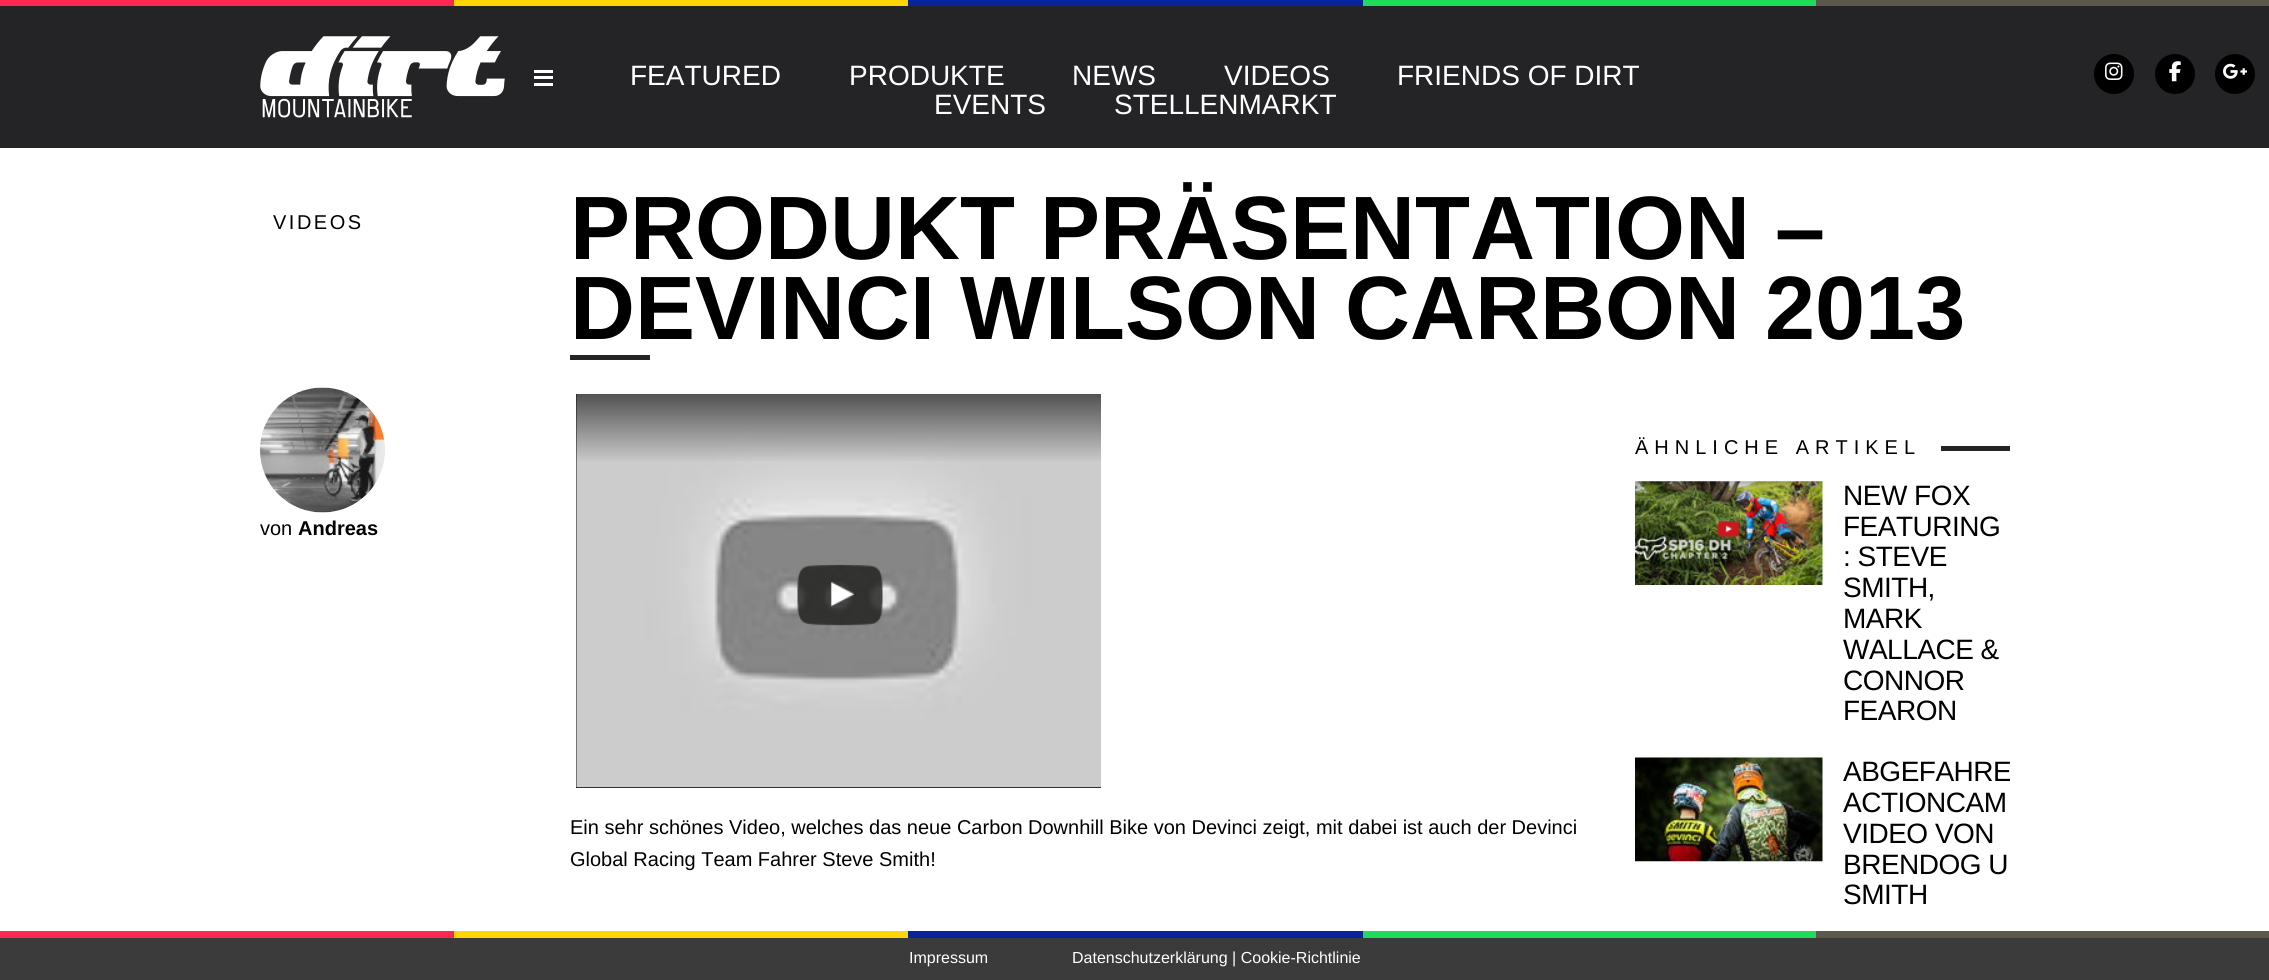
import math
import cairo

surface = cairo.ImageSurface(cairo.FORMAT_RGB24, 2269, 980)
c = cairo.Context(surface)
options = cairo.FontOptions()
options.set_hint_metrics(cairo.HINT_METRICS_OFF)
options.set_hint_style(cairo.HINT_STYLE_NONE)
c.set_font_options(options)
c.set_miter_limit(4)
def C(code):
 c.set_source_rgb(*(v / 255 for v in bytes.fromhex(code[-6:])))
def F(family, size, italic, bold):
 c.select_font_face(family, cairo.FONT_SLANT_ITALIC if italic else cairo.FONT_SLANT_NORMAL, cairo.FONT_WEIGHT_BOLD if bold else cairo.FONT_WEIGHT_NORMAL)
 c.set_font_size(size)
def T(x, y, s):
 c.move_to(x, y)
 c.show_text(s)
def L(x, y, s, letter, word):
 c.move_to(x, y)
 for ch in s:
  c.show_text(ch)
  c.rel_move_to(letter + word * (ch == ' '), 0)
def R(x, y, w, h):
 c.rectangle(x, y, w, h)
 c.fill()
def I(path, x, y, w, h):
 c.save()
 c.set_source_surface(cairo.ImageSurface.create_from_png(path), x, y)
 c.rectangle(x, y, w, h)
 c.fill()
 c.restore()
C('ffffff')
c.paint()
C('242426')
R(0,6,2269,142)
C('ff2853')
R(0,0,454,6)
C('ffd502')
R(454,0,454,6)
C('08239b')
R(908,0,455,6)
C('1cdc59')
R(1363,0,453,6)
C('5c584c')
R(1816,0,453,6)
I('1.png',260,36,245,82)
C('ffffff')
R(534,76,19,3)
R(534,70,19,3)
R(534,83,19,3)
F('Liberation Sans',28,0,0)
T(630,85,'FEATURED')
T(849,85,'PRODUKTE')
T(1072,85,'NEWS')
T(1224,85,'VIDEOS')
T(1397,85,'FRIENDS OF DIRT')
T(934,114,'EVENTS')
T(1114,114,'STELLENMARKT')
C('000000')
c.new_path()
c.arc(2114,74,20,0,2 * math.pi)
c.fill()
I('2.png',2105,62,18,18)
c.arc(2175,74,20,0,2 * math.pi)
c.fill()
I('3.png',2169,61,12,21)
c.arc(2235,74,20,0,2 * math.pi)
c.fill()
I('4.png',2223,63,24,16)
F('Liberation Sans',20,0,0)
L(273,229,'VIDEOS',2.5,0)
F('Liberation Sans',90,0,1)
T(570,259,'PRODUKT PRÄSENTATION –')
T(570,339,'DEVINCI WILSON CARBON 2013')
C('242426')
R(570,355,80,5)
I('5.png',260,387,125,126)
F('Liberation Sans',20,0,0)
C('000000')
T(260,535,'von')
F('Liberation Sans',20,0,1)
T(298,535,'Andreas')
F('Liberation Sans',20,0,0)
L(1635,454,'ÄHNLICHE ARTIKEL',6,0)
C('242426')
R(1941,446,69,5)
I('6.png',1635,481,188,104)
F('Liberation Sans',28,0,0)
C('000000')
L(1843,505,'NEW FOX',-.5,0)
L(1843,536,'FEATURING',-.5,0)
L(1843,566,': STEVE',-.5,0)
L(1843,597,'SMITH,',-.5,0)
L(1843,628,'MARK',-.5,0)
L(1843,659,'WALLACE &',-.5,0)
L(1843,690,'CONNOR',-.5,0)
L(1843,720,'FEARON',-.5,0)
I('7.png',1635,757,188,105)
c.save()
c.rectangle(260,388,1750,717)
c.clip()
L(1843,781,'ABGEFAHRE',-.5,0)
c.restore()
L(1843,812,'ACTIONCAM',-.5,0)
L(1843,843,'VIDEO VON',-.5,0)
L(1843,874,'BRENDOG U',-.5,0)
L(1843,904,'SMITH',-.5,0)
R(576,394,525,394)
I('8.png',576,394,525,394)
gradient = cairo.LinearGradient(839,394,839,463)
gradient.add_color_stop_rgba(0,0,0,0,.6)
gradient.add_color_stop_rgba(1,0,0,0,0)
c.set_source(gradient)
R(576,394,525,67)
I('9.png',797,564,86,62)
F('Liberation Sans',20,0,0)
C('000000')
T(570,834,'Ein sehr schönes Video, welches das neue Carbon Downhill Bike von Devinci zeigt, mit dabei ist auch der Devinci')
T(570,866,'Global Racing Team Fahrer Steve Smith!')
C('ff2853')
R(0,931,454,7)
C('ffd502')
R(454,931,454,7)
C('08239b')
R(908,931,455,7)
C('1cdc59')
R(1363,931,453,7)
C('5c584c')
R(1816,931,453,7)
C('3b3b3b')
R(0,938,2269,42)
F('Liberation Sans',16,0,0)
C('ffffff')
T(909,963,'Impressum')
T(1072,963,'Datenschutzerklärung | Cookie-Richtlinie')
surface.write_to_png('o.png')
